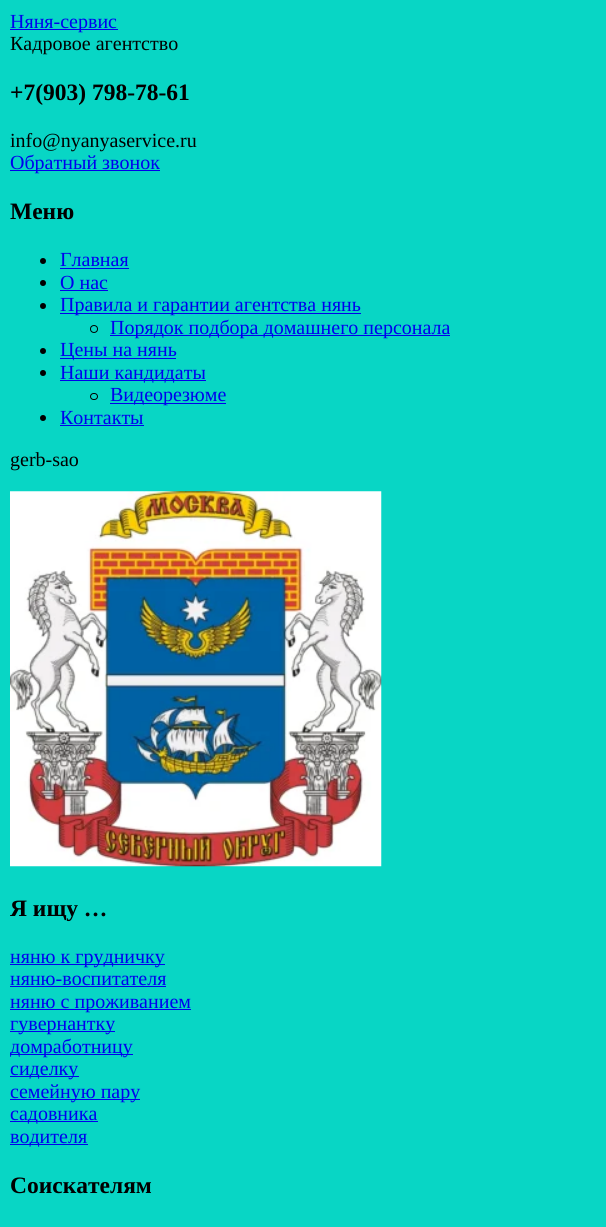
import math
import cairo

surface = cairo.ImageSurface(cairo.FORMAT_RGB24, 606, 1227)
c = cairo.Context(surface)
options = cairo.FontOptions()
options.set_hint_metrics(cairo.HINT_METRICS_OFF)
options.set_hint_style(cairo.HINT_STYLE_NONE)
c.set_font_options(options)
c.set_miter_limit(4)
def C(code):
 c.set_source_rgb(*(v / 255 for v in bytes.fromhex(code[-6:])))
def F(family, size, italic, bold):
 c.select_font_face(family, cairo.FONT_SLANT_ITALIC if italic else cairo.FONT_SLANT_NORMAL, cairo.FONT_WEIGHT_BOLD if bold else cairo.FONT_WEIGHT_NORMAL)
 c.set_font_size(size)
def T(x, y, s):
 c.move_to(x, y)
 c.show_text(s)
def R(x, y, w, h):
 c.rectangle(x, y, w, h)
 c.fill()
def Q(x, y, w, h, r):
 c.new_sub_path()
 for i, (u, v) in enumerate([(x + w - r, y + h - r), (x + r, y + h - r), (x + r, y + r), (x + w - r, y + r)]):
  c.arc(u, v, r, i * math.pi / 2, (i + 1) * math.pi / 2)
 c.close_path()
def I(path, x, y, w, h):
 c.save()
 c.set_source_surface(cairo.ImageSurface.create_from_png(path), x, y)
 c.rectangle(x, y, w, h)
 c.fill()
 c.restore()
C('08d6c5')
c.paint()
C('0000ee')
R(10,29,108,1)
F('Liberation Serif',20,0,0)
T(10,28,'Няня-сервис')
C('000000')
T(10,50,'Кадровое агентство')
F('Liberation Serif',23.5,0,1)
T(10,100,'+7(903) 798-78-61')
F('Liberation Serif',20,0,0)
T(10,147,'info@nyanyaservice.ru')
C('0000ee')
R(10,170,150,1)
T(10,169,'Обратный звонок')
F('Liberation Serif',23.5,0,1)
C('000000')
T(10,219,'Меню')
c.new_path()
c.arc(43,261,3,0,2 * math.pi)
c.fill()
F('Liberation Serif',20,0,0)
C('0000ee')
T(60,266,'Главная')
R(60,268,69,1)
C('000000')
c.new_path()
c.arc(43,283,3,0,2 * math.pi)
c.fill()
C('0000ee')
T(60,289,'О нас')
R(60,290,48,1)
C('000000')
c.new_path()
c.arc(43,306,3,0,2 * math.pi)
c.fill()
C('0000ee')
R(60,313,301,1)
T(60,311,'Правила и гарантии агентства нянь')
c.new_path()
c.arc(94,329,3.5,0,2 * math.pi)
C('000000')
c.set_line_width(1)
c.stroke()
C('0000ee')
R(110,335,340,1)
T(110,334,'Порядок подбора домашнего персонала')
C('000000')
c.new_path()
c.arc(43,351,3,0,2 * math.pi)
c.fill()
C('0000ee')
R(60,358,116,1)
T(60,356,'Цены на нянь')
C('000000')
c.new_path()
c.arc(43,373,3,0,2 * math.pi)
c.fill()
C('0000ee')
R(60,380,146,1)
T(60,379,'Наши кандидаты')
Q(90.5,393.5,7,6,3)
C('000000')
c.stroke()
C('0000ee')
R(110,403,116,1)
T(110,401,'Видеорезюме')
C('000000')
c.new_path()
c.arc(43,418,3,0,2 * math.pi)
c.fill()
C('0000ee')
T(60,424,'Контакты')
R(60,425,84,1)
C('000000')
T(10,466,'gerb-sao')
I('1.png',10,491,372,376)
F('Liberation Serif',23.5,0,1)
T(10,916,'Я ищу …')
C('0000ee')
R(10,964,155,1)
F('Liberation Serif',20,0,0)
T(10,963,'няню к грудничку')
T(10,985,'няню-воспитателя')
R(10,986,156,1)
R(10,1009,181,1)
T(10,1008,'няню с проживанием')
R(10,1031,105,1)
T(10,1030,'гувернантку')
R(10,1054,123,1)
T(10,1053,'домработницу')
R(10,1076,69,1)
T(10,1075,'сиделку')
R(10,1099,130,1)
T(10,1098,'семейную пару')
R(10,1121,88,1)
T(10,1120,'садовника')
R(10,1144,78,1)
T(10,1143,'водителя')
F('Liberation Serif',23.5,0,1)
C('000000')
T(10,1193,'Соискателям')
surface.write_to_png('o.png')
